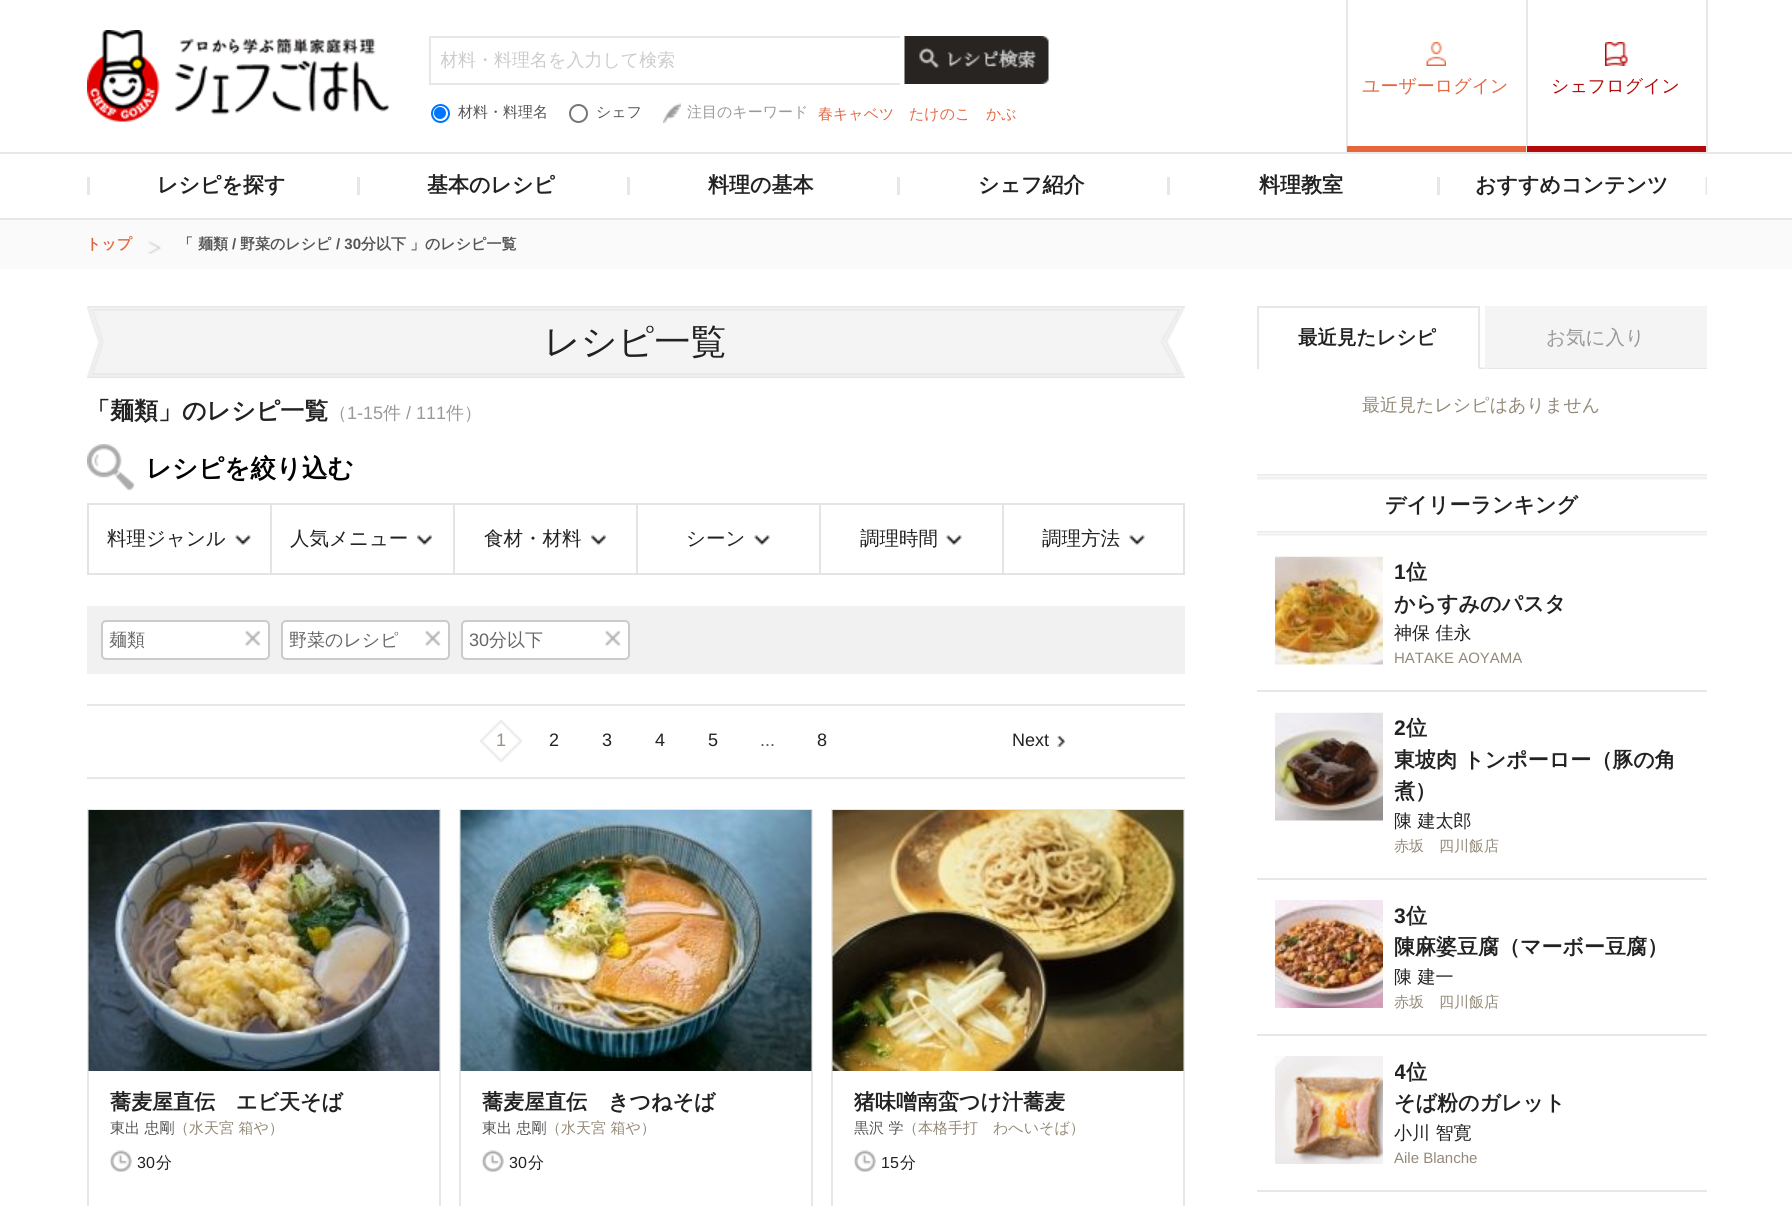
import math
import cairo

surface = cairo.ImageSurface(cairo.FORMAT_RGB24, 1792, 1206)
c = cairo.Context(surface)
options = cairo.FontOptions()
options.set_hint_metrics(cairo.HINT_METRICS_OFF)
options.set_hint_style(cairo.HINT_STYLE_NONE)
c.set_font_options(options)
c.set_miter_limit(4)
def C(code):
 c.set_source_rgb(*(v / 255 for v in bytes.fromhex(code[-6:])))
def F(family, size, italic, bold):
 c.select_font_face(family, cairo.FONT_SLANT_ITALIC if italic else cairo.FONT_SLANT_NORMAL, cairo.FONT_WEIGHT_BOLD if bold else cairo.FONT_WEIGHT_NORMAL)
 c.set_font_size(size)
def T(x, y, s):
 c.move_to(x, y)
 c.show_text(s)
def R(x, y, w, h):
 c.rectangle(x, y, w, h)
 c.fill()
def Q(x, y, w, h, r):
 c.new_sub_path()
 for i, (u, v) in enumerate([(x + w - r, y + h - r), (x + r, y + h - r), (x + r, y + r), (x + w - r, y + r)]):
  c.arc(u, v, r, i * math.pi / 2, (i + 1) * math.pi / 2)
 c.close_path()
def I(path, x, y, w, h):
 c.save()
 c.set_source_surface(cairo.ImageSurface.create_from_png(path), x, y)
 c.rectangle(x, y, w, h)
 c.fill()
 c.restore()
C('ffffff')
c.paint()
I('1.png',87,30,302,92)
C('e7e7e7')
R(429,36,471,2)
R(429,83,471,2)
R(429,36,2,48)
c.save()
c.rectangle(441,48,449,26)
c.clip()
F('WenQuanYi Zen Hei Medium',18,0,0)
C('cccccc')
T(440,66,'材料・料理名を入力して検索')
c.restore()
I('2.png',904,36,145,48)
c.arc(440.5,113.5,8.5,0,2 * math.pi)
C('0075ff')
c.stroke()
c.arc(440,113,6,0,2 * math.pi)
c.fill()
F('WenQuanYi Zen Hei Medium',15,0,0)
C('555555')
T(458,117,'材料・料理名')
c.new_path()
c.arc(578.5,113.5,8.5,0,2 * math.pi)
C('767676')
c.stroke()
C('555555')
T(596,117,'シェフ')
I('3.png',663,103,18,20)
C('999999')
T(687,117,'注目のキーワード')
C('e46740')
T(818,119,'春キャベツ')
T(909,119,'たけのこ')
T(986,119,'かぶ')
C('e7e7e7')
R(1706,0,2,152)
R(1346,0,2,152)
I('4.png',1426,42,20,24)
C('e6673d')
R(1347,146,179,6)
F('WenQuanYi Zen Hei Medium',18,0,0)
C('e46740')
T(1362,92,'ユーザーログイン')
C('e7e7e7')
R(1526,0,2,152)
I('5.png',1605,42,23,24)
C('b30b0b')
R(1527,146,179,6)
T(1551,92,'シェフログイン')
C('e7e7e7')
R(0,152,1792,2)
R(0,218,1792,2)
I('6.png',1705,177,2,18)
R(87,177,3,18)
F('WenQuanYi Zen Hei',21,0,1)
C('222222')
T(157,192,'レシピを探す')
C('e7e7e7')
R(357,177,3,18)
C('222222')
T(427,192,'基本のレシピ')
C('e7e7e7')
R(627,177,3,18)
C('222222')
T(708,192,'料理の基本')
C('e7e7e7')
R(897,177,3,18)
C('222222')
T(978,192,'シェフ紹介')
C('e7e7e7')
R(1167,177,3,18)
C('222222')
T(1259,192,'料理教室')
C('e7e7e7')
R(1437,177,3,18)
C('222222')
T(1475,192,'おすすめコンテンツ')
C('fafafa')
R(0,220,1792,49)
F('WenQuanYi Zen Hei',15,0,1)
C('e46740')
T(86,249,'トップ')
I('7.png',148,241,13,13)
C('555555')
T(178,249,'「')
T(198,249,'麺類')
F('Liberation Sans',15,0,1)
T(232,249,'/')
F('WenQuanYi Zen Hei',15,0,1)
T(240,249,'野菜のレシピ')
F('Liberation Sans',15,0,1)
T(336,249,'/ 30')
F('WenQuanYi Zen Hei',15,0,1)
T(361,249,'分以下')
T(410,249,'」のレシピ一覧')
I('8.png',87,306,1098,72)
F('WenQuanYi Zen Hei Medium',36,0,0)
C('222222')
T(544,354,'レシピ一覧')
F('WenQuanYi Zen Hei',24,0,1)
T(86,419,'「麺類」のレシピ一覧')
F('WenQuanYi Zen Hei Medium',18,0,0)
C('999999')
T(329,419,'（')
F('Liberation Sans',18,0,0)
T(347,419,'1-15')
F('WenQuanYi Zen Hei Medium',18,0,0)
T(383,419,'件')
F('Liberation Sans',18,0,0)
T(406,419,'/ 111')
F('WenQuanYi Zen Hei Medium',18,0,0)
T(446,419,'件）')
I('9.png',87,444,48,47)
F('WenQuanYi Zen Hei',25.5,0,1)
C('000000')
T(146,477,'レシピを絞り込む')
c.rectangle(88,504,1096,70)
C('e4e4e4')
c.stroke()
F('WenQuanYi Zen Hei Medium',19.5,0,0)
C('222222')
T(107,545,'料理ジャンル')
I('10.png',235,535,16,10)
C('e4e4e4')
R(270,504,2,69)
C('222222')
T(290,545,'人気メニュー')
I('11.png',417,535,15,10)
C('e4e4e4')
R(453,504,2,69)
C('222222')
T(484,545,'食材・材料')
I('11.png',591,535,15,10)
C('e4e4e4')
R(636,504,2,69)
C('222222')
T(686,545,'シーン')
I('12.png',754,535,16,10)
C('e4e4e4')
R(819,504,2,69)
C('222222')
T(860,545,'調理時間')
I('10.png',946,535,16,10)
C('e4e4e4')
R(1002,504,2,69)
C('222222')
T(1042,545,'調理方法')
I('13.png',1129,535,16,10)
C('f1f1f1')
R(87,606,1098,68)
C('ffffff')
Q(102,621,167,38,4)
c.fill_preserve()
C('cbcbcb')
c.stroke()
F('WenQuanYi Zen Hei Medium',18,0,0)
C('666666')
T(109,646,'麺類')
I('14.png',245,630,16,17)
C('ffffff')
Q(282,621,167,38,4)
c.fill_preserve()
C('cbcbcb')
c.stroke()
C('666666')
T(289,646,'野菜のレシピ')
I('15.png',425,630,16,17)
C('ffffff')
Q(462,621,167,38,4)
c.fill_preserve()
C('cbcbcb')
c.stroke()
F('Liberation Sans',18,0,0)
C('666666')
T(469,646,'30')
F('WenQuanYi Zen Hei Medium',18,0,0)
T(489,646,'分以下')
I('15.png',605,630,16,17)
C('e7e7e7')
R(87,704,1098,2)
R(87,777,1098,2)
I('16.png',480,720,42,42)
F('Liberation Sans',18,0,0)
C('9a9181')
T(496,746,'1')
C('222222')
T(549,746,'2')
T(602,746,'3')
T(655,746,'4')
T(708,746,'5')
C('555555')
T(760,746,'...')
C('222222')
T(817,746,'8')
T(1012,746,'Next')
I('17.png',1057,735,8,12)
c.rectangle(88,810,352,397)
C('e7e7e7')
c.stroke()
I('18.png',88,810,352,261)
F('WenQuanYi Zen Hei',21,0,1)
C('222222')
T(110,1109,'蕎麦屋直伝　エビ天そば')
F('WenQuanYi Zen Hei Medium',15,0,0)
C('555555')
T(110,1133,'東出 忠剛')
C('938978')
T(174,1133,'（水天宮 箱や）')
I('19.png',109,1150,23,22)
F('Liberation Sans',16,0,0)
C('222222')
T(137,1168,'30')
F('WenQuanYi Zen Hei Medium',16,0,0)
T(156,1168,'分')
c.rectangle(460,810,352,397)
C('e7e7e7')
c.stroke()
I('20.png',460,810,352,261)
F('WenQuanYi Zen Hei',21,0,1)
C('222222')
T(482,1109,'蕎麦屋直伝　きつねそば')
F('WenQuanYi Zen Hei Medium',15,0,0)
C('555555')
T(482,1133,'東出 忠剛')
C('938978')
T(546,1133,'（水天宮 箱や）')
I('19.png',481,1150,23,22)
F('Liberation Sans',16,0,0)
C('222222')
T(509,1168,'30')
F('WenQuanYi Zen Hei Medium',16,0,0)
T(528,1168,'分')
c.rectangle(832,810,352,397)
C('e7e7e7')
c.stroke()
I('21.png',832,810,352,261)
F('WenQuanYi Zen Hei',21,0,1)
C('222222')
T(854,1109,'猪味噌南蛮つけ汁蕎麦')
F('WenQuanYi Zen Hei Medium',15,0,0)
C('555555')
T(854,1133,'黒沢 学')
C('938978')
T(903,1133,'（本格手打　わへいそば）')
I('19.png',853,1150,23,22)
F('Liberation Sans',16,0,0)
C('222222')
T(881,1168,'15')
F('WenQuanYi Zen Hei Medium',16,0,0)
T(900,1168,'分')
I('22.png',1480,367,5,2)
C('e7e7e7')
R(1257,306,222,2)
R(1478,306,2,63)
C('ffffff')
R(1478,368,1,1)
C('e7e7e7')
R(1257,306,2,63)
F('WenQuanYi Zen Hei',19.5,0,1)
C('222222')
T(1298,344,'最近見たレシピ')
C('f4f4f4')
R(1487,306,220,62)
C('e7e7e7')
R(1485,368,222,1)
C('f4f4f4')
R(1485,306,2,63)
F('WenQuanYi Zen Hei Medium',19.5,0,0)
C('999999')
T(1546,344,'お気に入り')
F('WenQuanYi Zen Hei Medium',18,0,0)
C('938978')
T(1362,411,'最近見たレシピはありません')
I('23.png',1257,531,450,5)
I('24.png',1257,474,450,6)
F('WenQuanYi Zen Hei',21,0,1)
C('222222')
T(1385,512,'デイリーランキング')
C('e7e7e7')
R(1257,690,450,2)
I('25.png',1275,556,108,109)
F('Liberation Sans',21,0,1)
C('222222')
T(1394,579,'1')
F('WenQuanYi Zen Hei',21,0,1)
T(1406,579,'位')
T(1394,611,'からすみのパスタ')
F('WenQuanYi Zen Hei Medium',18,0,0)
T(1394,639,'神保 佳永')
F('Liberation Sans',15,0,0)
C('938978')
T(1394,663,'HATAKE AOYAMA')
C('e7e7e7')
R(1257,878,450,2)
I('26.png',1275,712,108,109)
F('Liberation Sans',21,0,1)
C('222222')
T(1394,735,'2')
F('WenQuanYi Zen Hei',21,0,1)
T(1406,735,'位')
T(1394,767,'東坡肉 トンポーロー（豚の角')
T(1394,798,'煮）')
F('WenQuanYi Zen Hei Medium',18,0,0)
T(1394,827,'陳 建太郎')
F('WenQuanYi Zen Hei Medium',15,0,0)
C('938978')
T(1394,851,'赤坂　四川飯店')
C('e7e7e7')
R(1257,1034,450,2)
I('27.png',1275,900,108,108)
F('Liberation Sans',21,0,1)
C('222222')
T(1394,923,'3')
F('WenQuanYi Zen Hei',21,0,1)
T(1406,923,'位')
T(1394,954,'陳麻婆豆腐（マーボー豆腐）')
F('WenQuanYi Zen Hei Medium',18,0,0)
T(1394,983,'陳 建一')
F('WenQuanYi Zen Hei Medium',15,0,0)
C('938978')
T(1394,1007,'赤坂　四川飯店')
C('e7e7e7')
R(1257,1190,450,2)
I('28.png',1275,1056,108,108)
c.save()
c.rectangle(1395,1056,294,113)
c.clip()
F('Liberation Sans',21,0,1)
C('222222')
T(1394,1079,'4')
c.restore()
F('WenQuanYi Zen Hei',21,0,1)
C('222222')
T(1406,1079,'位')
T(1394,1110,'そば粉のガレット')
F('WenQuanYi Zen Hei Medium',18,0,0)
T(1394,1139,'小川 智寛')
F('Liberation Sans',15,0,0)
C('938978')
T(1394,1163,'Aile Blanche')
surface.write_to_png('o.png')
